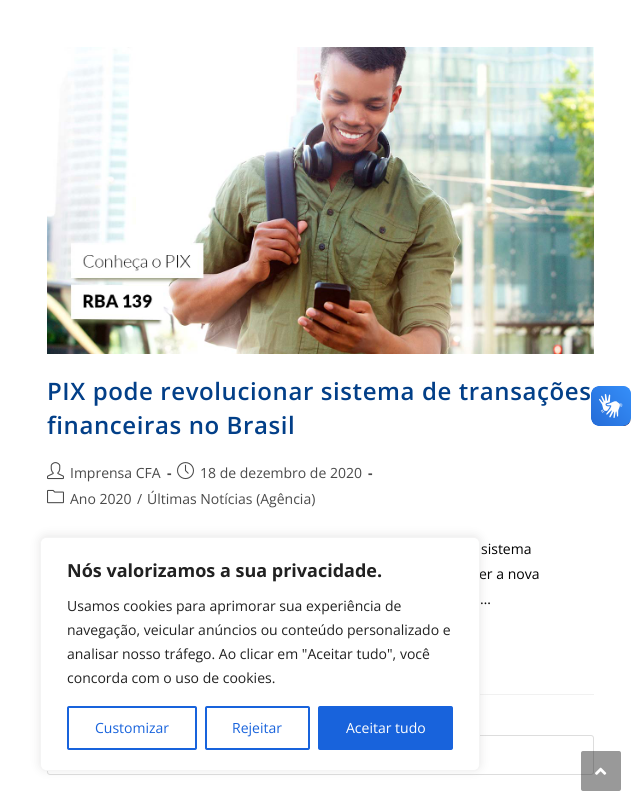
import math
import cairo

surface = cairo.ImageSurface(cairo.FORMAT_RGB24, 641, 811)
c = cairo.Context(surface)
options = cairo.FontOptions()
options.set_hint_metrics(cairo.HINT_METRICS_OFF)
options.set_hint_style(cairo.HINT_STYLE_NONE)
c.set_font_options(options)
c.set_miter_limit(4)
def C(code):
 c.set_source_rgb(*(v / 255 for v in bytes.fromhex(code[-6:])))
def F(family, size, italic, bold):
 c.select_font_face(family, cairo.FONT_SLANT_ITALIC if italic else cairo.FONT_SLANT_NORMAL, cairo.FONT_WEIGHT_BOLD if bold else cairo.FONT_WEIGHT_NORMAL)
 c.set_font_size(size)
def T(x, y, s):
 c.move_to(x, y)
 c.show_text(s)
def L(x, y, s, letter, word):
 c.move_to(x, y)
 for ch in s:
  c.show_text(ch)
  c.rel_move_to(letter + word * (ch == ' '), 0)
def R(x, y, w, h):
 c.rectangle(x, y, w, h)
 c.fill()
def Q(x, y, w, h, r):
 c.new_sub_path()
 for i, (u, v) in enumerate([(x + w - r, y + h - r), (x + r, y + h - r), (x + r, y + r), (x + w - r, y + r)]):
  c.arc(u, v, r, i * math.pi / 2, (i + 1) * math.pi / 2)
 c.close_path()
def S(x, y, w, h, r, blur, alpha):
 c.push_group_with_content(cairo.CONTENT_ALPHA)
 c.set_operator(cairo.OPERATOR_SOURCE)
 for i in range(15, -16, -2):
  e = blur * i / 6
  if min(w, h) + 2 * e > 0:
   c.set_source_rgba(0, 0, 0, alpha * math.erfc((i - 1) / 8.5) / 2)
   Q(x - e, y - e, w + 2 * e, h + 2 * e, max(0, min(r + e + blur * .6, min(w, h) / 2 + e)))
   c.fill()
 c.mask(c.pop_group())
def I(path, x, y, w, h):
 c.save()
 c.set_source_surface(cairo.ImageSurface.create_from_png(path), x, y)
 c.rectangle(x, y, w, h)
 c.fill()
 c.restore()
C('ffffff')
c.paint()
C('f1f1f1')
R(480,694,114,1)
I('1.png',47,47,547,307)
F('Open Sans SemiBold',24,0,0)
C('023f88')
L(47,400,'PIX pode revolucionar sistema de transações',.6,0)
L(47,434,'financeiras no Brasil',.6,0)
I('2.png',47,462,17,18)
F('Open Sans',14,0,0)
C('4a4a4a')
T(70,478,'Imprensa CFA')
F('Open Sans',14,0,1)
T(167,478,'-')
I('3.png',177,462,17,18)
F('Open Sans',14,0,0)
T(200,478,'18 de dezembro de 2020')
F('Open Sans',14,0,1)
T(368,478,'-')
I('4.png',47,489,17,15)
F('Open Sans',14,0,0)
T(70,504,'Ano 2020')
T(137,504,'/')
T(147,504,'Últimas Notícias (Agência)')
C('000000')
T(481,554,'sistema')
T(479,579,'er a nova')
T(480,604,'…')
Q(47.5,735.5,546,39,2.5)
C('dddddd')
c.set_line_width(1)
c.stroke()
I('5.png',591,386,40,40)
I('6.png',591,386,40,40)
C('acabab')
S(40,536,440,234,6,5,.3)
C('ffffff')
Q(40.5,537.5,439,233,5.5)
c.fill_preserve()
C('f4f4f4')
c.stroke()
F('Open Sans',18,0,1)
C('212121')
T(67,577,'Nós valorizamos a sua privacidade.')
F('Open Sans',14,0,0)
T(67,611,'Usamos cookies para aprimorar sua experiência de')
T(67,635,'navegação, veicular anúncios ou conteúdo personalizado e')
T(67,659,'analisar nosso tráfego. Ao clicar em "Aceitar tudo", você')
T(67,683,'concorda com o uso de cookies.')
Q(68,707,128,42,1)
C('1863dc')
c.set_line_width(2)
c.stroke()
T(95,733,'Customizar')
Q(206,707,103,42,1)
c.stroke()
T(232,733,'Rejeitar')
Q(319,707,133,42,1)
c.fill_preserve()
c.stroke()
C('ffffff')
T(346,733,'Aceitar tudo')
c.set_source_rgba(0,0,0,0.4)
Q(581,751,40,40,2)
c.fill()
I('7.png',595,767,12,8)
surface.write_to_png('o.png')
